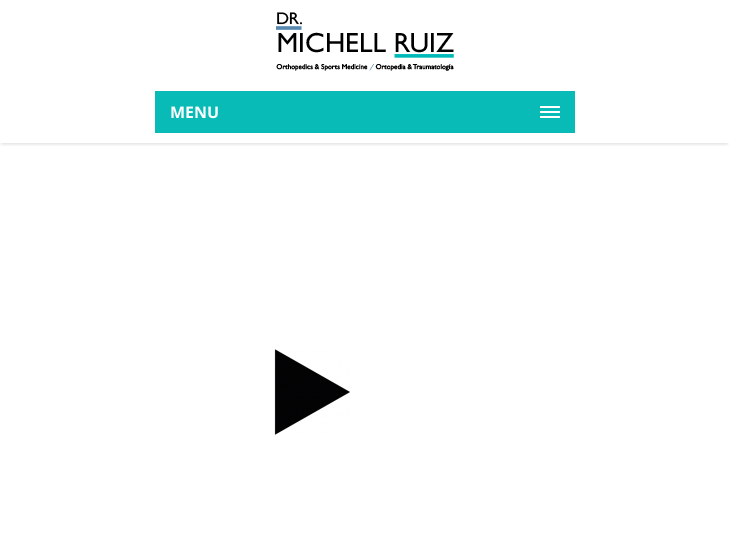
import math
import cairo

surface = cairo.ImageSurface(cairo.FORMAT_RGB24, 729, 556)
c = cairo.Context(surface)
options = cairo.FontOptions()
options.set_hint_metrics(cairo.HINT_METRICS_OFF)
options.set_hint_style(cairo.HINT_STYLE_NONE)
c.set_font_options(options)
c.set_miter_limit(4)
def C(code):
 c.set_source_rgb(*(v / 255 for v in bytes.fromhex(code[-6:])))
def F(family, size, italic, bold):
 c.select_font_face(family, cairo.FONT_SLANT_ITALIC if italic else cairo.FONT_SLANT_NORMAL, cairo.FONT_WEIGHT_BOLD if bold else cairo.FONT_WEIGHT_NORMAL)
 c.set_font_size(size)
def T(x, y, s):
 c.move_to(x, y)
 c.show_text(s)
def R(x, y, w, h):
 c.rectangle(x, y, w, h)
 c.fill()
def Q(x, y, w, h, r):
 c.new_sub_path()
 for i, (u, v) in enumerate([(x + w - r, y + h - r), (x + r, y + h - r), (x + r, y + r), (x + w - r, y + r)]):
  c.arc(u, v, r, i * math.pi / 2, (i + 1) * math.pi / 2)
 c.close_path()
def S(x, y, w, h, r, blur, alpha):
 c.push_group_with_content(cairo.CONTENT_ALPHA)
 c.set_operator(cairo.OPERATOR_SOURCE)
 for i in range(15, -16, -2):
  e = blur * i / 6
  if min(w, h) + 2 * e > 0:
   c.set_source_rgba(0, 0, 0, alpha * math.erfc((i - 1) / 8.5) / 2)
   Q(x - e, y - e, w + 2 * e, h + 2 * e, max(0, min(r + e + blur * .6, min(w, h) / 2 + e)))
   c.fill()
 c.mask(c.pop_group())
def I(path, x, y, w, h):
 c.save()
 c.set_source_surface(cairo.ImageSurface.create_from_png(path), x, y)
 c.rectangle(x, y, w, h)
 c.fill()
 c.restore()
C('ffffff')
c.paint()
c.save()
c.rectangle(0,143,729,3)
c.clip()
C('000000')
S(2,5,725,139,0,2,.15)
c.restore()
I('1.png',276,12,178,59)
C('08bbb7')
R(155,91,420,42)
F('Open Sans',16,0,1)
C('ffffff')
T(170,118,'MENU')
R(540,111,20,2)
R(540,106,20,2)
R(540,116,20,2)
I('2.png',274,349,76,86)
surface.write_to_png('o.png')
